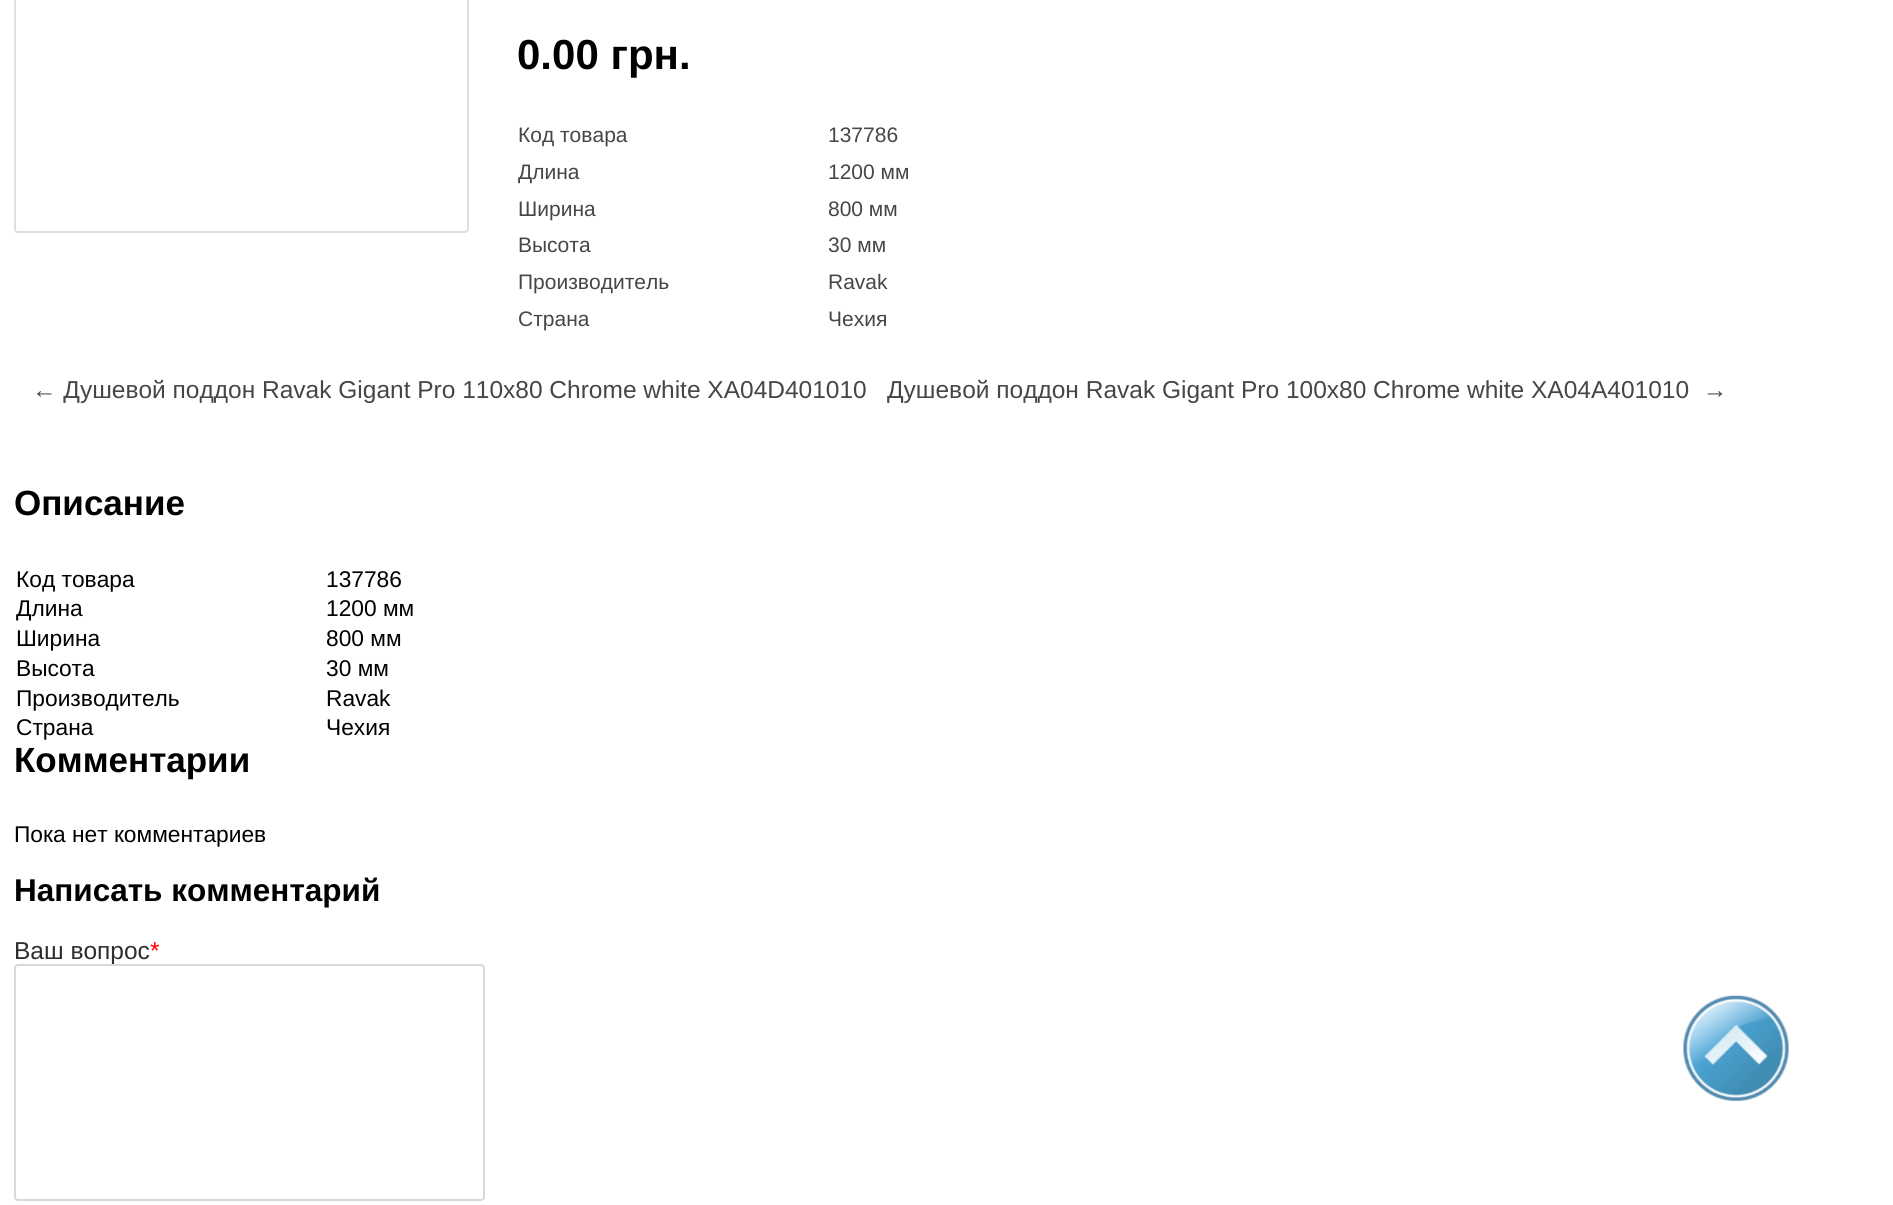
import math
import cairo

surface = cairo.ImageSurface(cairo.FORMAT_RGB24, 1893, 1205)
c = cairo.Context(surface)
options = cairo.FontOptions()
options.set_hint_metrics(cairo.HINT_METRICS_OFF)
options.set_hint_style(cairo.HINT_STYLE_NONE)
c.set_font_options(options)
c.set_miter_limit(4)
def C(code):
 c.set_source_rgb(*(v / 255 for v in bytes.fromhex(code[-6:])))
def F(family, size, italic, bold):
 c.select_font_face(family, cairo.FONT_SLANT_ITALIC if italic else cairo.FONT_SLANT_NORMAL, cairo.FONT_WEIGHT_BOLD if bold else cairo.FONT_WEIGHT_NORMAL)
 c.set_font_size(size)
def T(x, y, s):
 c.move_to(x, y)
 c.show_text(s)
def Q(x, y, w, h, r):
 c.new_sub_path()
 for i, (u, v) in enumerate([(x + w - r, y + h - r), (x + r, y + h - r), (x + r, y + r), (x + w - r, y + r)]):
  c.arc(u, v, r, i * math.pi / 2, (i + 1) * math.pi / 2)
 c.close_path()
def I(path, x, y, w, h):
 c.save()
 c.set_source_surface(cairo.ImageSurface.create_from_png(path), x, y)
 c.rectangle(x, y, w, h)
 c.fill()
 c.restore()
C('ffffff')
c.paint()
Q(15,-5,453,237,3)
C('dfdfdf')
c.stroke()
F('Liberation Sans',42,0,1)
C('000000')
T(517,69,'0.00 грн.')
F('Liberation Sans',21,0,0)
C('444648')
T(518,142,'Код товара')
T(828,142,'137786')
T(518,179,'Длина')
T(828,179,'1200 мм')
T(518,216,'Ширина')
T(828,216,'800 мм')
T(518,252,'Высота')
T(828,252,'30 мм')
T(518,289,'Производитель')
T(828,289,'Ravak')
T(518,326,'Страна')
T(828,326,'Чехия')
F('Liberation Sans',24.5,0,0)
T(32,398,'← Душевой поддон Ravak Gigant Pro 110x80 Chrome white XA04D401010')
T(887,398,'Душевой поддон Ravak Gigant Pro 100x80 Chrome white XA04A401010  →')
F('Liberation Sans',35,0,1)
C('000000')
T(14,515,'Описание')
F('Liberation Sans',22.75,0,0)
T(16,587,'Код товара')
T(326,587,'137786')
T(16,616,'Длина')
T(326,616,'1200 мм')
T(16,646,'Ширина')
T(326,646,'800 мм')
T(16,676,'Высота')
T(326,676,'30 мм')
T(16,706,'Производитель')
T(326,706,'Ravak')
T(16,735,'Страна')
T(326,735,'Чехия')
F('Liberation Sans',35,0,1)
T(14,772,'Комментарии')
F('Liberation Sans',22.75,0,0)
T(14,842,'Пока нет комментариев')
F('Liberation Sans',31.5,0,1)
T(14,901,'Написать комментарий')
F('Liberation Sans',24.5,0,0)
C('2e2e2e')
T(14,959,'Ваш вопрос')
C('ff0000')
T(150,959,'*')
C('ffffff')
Q(15,965,469,235,3)
c.fill_preserve()
C('d8d8d8')
c.stroke()
I('1.png',1683,995,106,106)
surface.write_to_png('o.png')
